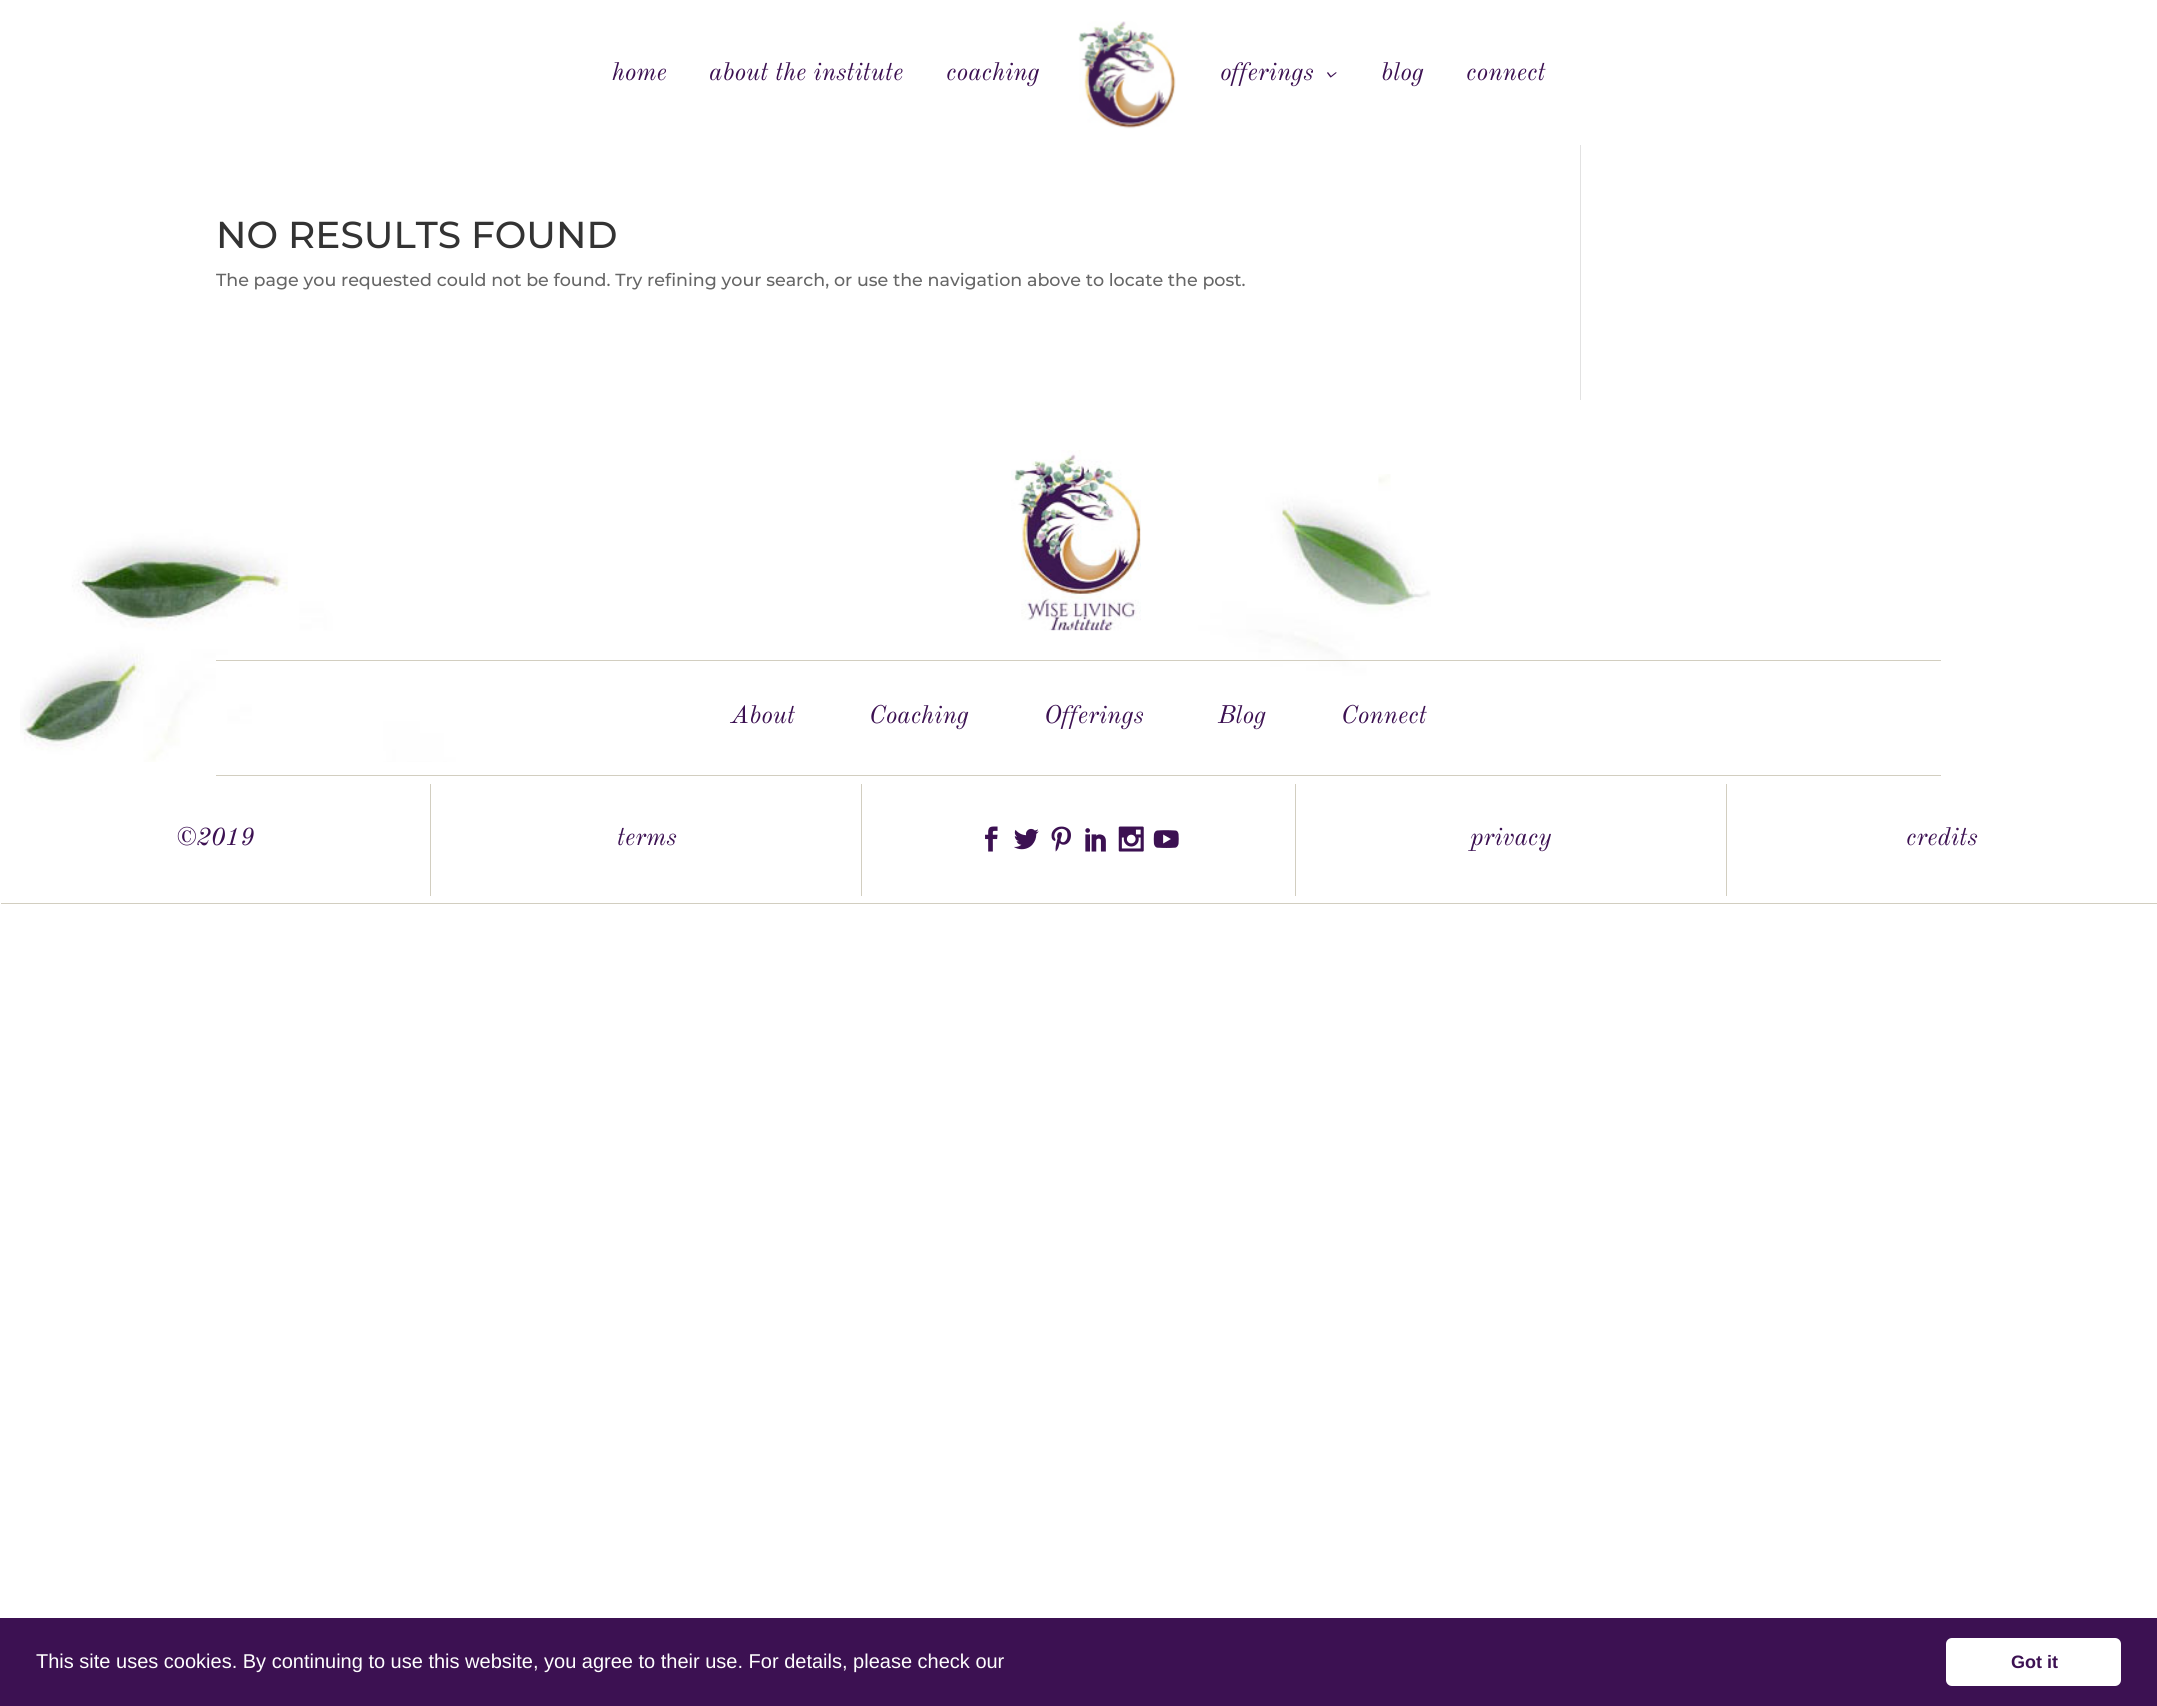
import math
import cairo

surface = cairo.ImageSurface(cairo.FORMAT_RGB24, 2157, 1706)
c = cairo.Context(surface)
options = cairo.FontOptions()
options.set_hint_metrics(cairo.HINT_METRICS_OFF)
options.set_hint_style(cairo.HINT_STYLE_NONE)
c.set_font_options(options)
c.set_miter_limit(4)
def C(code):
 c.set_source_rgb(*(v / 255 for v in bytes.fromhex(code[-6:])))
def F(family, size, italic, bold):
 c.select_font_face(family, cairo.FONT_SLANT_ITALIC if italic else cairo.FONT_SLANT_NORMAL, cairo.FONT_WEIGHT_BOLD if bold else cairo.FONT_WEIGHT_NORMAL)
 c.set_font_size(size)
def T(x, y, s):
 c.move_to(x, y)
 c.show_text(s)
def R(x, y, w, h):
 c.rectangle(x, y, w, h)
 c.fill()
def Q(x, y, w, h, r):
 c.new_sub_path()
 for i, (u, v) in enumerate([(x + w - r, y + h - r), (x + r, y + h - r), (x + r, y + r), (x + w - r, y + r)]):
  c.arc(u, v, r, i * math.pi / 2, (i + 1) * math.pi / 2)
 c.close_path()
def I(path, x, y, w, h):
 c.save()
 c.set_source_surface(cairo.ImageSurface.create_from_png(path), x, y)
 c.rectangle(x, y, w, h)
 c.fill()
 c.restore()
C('ffffff')
c.paint()
C('e2e2e2')
R(1580,144,1,256)
C('ffffff')
R(1580,144,1,1)
F('Old Standard TT',25,1,0)
C('3c1152')
T(612,80,'home')
T(709,80,'about the institute')
T(946,80,'coaching')
I('1.png',1078,21,98,108)
T(1220,80,'offerings')
I('2.png',1327,72,10,6)
T(1381,80,'blog')
T(1466,80,'connect')
F('Montserrat Medium',37.5,0,0)
C('333333')
T(216,248,'NO RESULTS FOUND')
F('Montserrat Medium',17.5,0,0)
C('666666')
T(216,286,'The page you requested could not be found. Try refining your search, or use the navigation above to locate the post.')
I('3.png',20,474,1411,288)
I('4.png',1011,450,130,181)
C('d2cec0')
R(216,660,1725,1)
R(216,775,1725,1)
F('Old Standard TT',25,1,0)
C('3c1152')
T(731,723,'About')
T(869,723,'Coaching')
T(1044,723,'Offerings')
T(1218,723,'Blog')
T(1341,723,'Connect')
C('d2cec0')
R(1,903,2156,1)
R(430,784,1,112)
C('3c1152')
T(176,845,'©2019')
C('d2cec0')
R(861,784,1,112)
C('3c1152')
T(617,845,'terms')
I('5.png',985,826,13,26)
I('6.png',1014,828,25,22)
I('7.png',1051,826,20,26)
I('8.png',1085,828,21,24)
I('9.png',1118,826,26,26)
I('10.png',1153,830,26,18)
C('d2cec0')
R(1295,784,1,112)
C('3c1152')
T(1470,845,'privacy')
C('d2cec0')
R(1726,784,1,112)
C('3c1152')
T(1906,845,'credits')
R(0,1618,2157,88)
F('Liberation Sans',20,0,0)
C('ffffff')
T(36,1668,'This site uses cookies. By continuing to use this website, you agree to their use. For details, please check our')
Q(1946,1638,175,48,6)
c.fill()
F('Liberation Sans',18,0,1)
C('3c1152')
T(2011,1668,'Got it')
surface.write_to_png('o.png')
